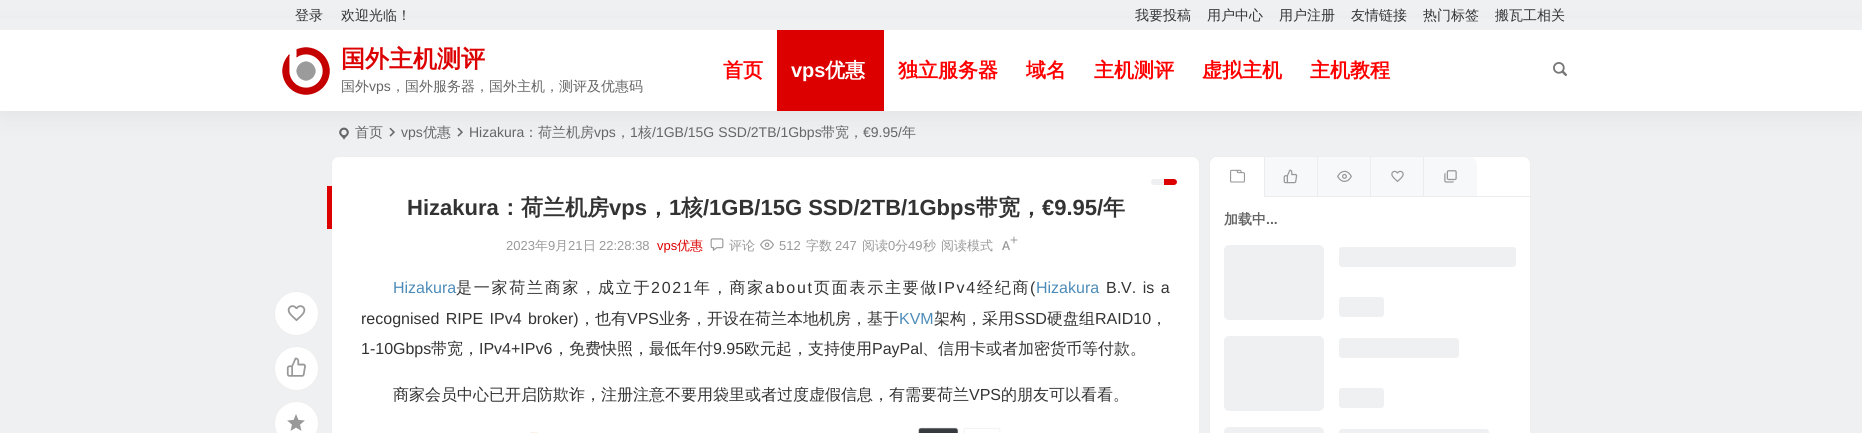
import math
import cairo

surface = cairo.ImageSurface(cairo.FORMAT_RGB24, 1862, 433)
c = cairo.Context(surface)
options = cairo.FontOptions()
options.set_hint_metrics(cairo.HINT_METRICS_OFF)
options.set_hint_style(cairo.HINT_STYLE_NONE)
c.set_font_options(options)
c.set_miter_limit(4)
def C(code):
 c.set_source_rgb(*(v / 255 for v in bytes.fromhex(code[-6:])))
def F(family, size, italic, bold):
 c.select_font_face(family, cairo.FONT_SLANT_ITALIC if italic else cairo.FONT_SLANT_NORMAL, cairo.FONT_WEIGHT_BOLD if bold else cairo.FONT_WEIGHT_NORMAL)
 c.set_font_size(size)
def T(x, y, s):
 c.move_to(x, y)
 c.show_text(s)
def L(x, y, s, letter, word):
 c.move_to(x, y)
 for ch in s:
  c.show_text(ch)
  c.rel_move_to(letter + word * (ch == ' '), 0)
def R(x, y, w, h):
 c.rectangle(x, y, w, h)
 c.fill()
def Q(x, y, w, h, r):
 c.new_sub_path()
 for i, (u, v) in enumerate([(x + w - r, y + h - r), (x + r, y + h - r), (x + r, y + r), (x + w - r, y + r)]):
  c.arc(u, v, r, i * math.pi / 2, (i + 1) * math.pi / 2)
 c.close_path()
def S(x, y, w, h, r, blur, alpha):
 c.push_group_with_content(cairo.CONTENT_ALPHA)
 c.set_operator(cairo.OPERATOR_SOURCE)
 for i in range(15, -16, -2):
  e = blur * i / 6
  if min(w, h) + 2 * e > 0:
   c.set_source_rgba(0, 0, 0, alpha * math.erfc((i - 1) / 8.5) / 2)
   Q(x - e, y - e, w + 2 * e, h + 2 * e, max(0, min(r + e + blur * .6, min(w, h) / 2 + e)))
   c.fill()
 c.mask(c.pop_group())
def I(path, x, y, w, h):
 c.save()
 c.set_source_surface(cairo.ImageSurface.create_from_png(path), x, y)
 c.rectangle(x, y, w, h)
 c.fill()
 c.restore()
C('eff0f2')
c.paint()
I('3.png',339,127,10,13)
I('4.png',389,127,6,10)
I('4.png',457,127,6,10)
C('ffffff')
Q(331,156,869,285,8)
c.fill()
Q(331.5,156.5,868,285,7.5)
c.set_source_rgba(0,0,0,0.07)
c.set_line_width(1)
c.stroke()
C('ffffff')
Q(1209,156,322,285,8)
c.fill()
Q(1209.5,156.5,321,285,7.5)
c.set_source_rgba(0,0,0,0.07)
c.stroke()
C('ececec')
R(1209,196,322,1)
C('ffffff')
c.new_path()
c.move_to(1218,157)
c.line_to(1264,157)
c.line_to(1264,197)
c.line_to(1210,197)
c.line_to(1210,165)
c.curve_to(1210,160.5,1213.5,157,1218,157)
c.close_path()
c.fill()
C('f7f8f9')
R(1265,157,52,39)
C('ececec')
R(1264,157,1,40)
C('f7f8f9')
R(1318,157,52,39)
C('ececec')
R(1317,157,1,40)
C('f7f8f9')
R(1371,157,52,39)
C('ececec')
R(1370,157,1,40)
C('f7f8f9')
c.new_path()
c.move_to(1423,157)
c.line_to(1469,157)
c.curve_to(1473.5,157,1477,160.5,1477,165)
c.line_to(1477,197)
c.line_to(1423,197)
c.close_path()
c.fill()
C('ececec')
R(1423,196,54,1)
R(1423,157,1,40)
C('000000')
S(0,33,1862,81,0,15,.06)
C('eff0f2')
R(0,19,1862,11)
F('WenQuanYi Zen Hei Medium',14,0,0)
C('333333')
T(295,20,'登录')
T(341,20,'欢迎光临！')
T(1135,20,'我要投稿')
T(1207,20,'用户中心')
T(1279,20,'用户注册')
T(1351,20,'友情链接')
T(1423,20,'热门标签')
T(1495,20,'搬瓦工相关')
C('ffffff')
R(0,30,1862,81)
I('1.png',282,47,48,48)
F('WenQuanYi Zen Hei',24,0,1)
C('dd0000')
T(341,67,'国外主机测评')
F('WenQuanYi Zen Hei Medium',14,0,0)
C('666666')
T(341,91,'国外')
F('Liberation Sans',14,0,0)
T(369,91,'vps')
F('WenQuanYi Zen Hei Medium',14,0,0)
T(391,91,'，国外服务器，国外主机，测评及优惠码')
F('WenQuanYi Zen Hei',20,0,1)
C('ff0000')
T(723,77,'首页')
C('dd0000')
R(777,30,107,81)
F('Liberation Sans',20,0,1)
C('ffffff')
T(791,77,'vps')
F('WenQuanYi Zen Hei',20,0,1)
T(825,77,'优惠')
C('ff0000')
T(898,77,'独立服务器')
T(1026,77,'域名')
T(1094,77,'主机测评')
T(1202,77,'虚拟主机')
T(1310,77,'主机教程')
I('2.png',1553,62,14,14)
F('WenQuanYi Zen Hei Medium',14,0,0)
C('666666')
T(355,137,'首页')
F('Liberation Sans',14,0,0)
T(401,137,'vps')
F('WenQuanYi Zen Hei Medium',14,0,0)
T(423,137,'优惠')
F('Liberation Sans',14,0,0)
T(469,137,'Hizakura')
F('WenQuanYi Zen Hei Medium',14,0,0)
T(524,137,'：荷兰机房')
F('Liberation Sans',14,0,0)
T(594,137,'vps')
F('WenQuanYi Zen Hei Medium',14,0,0)
T(616,137,'，')
F('Liberation Sans',14,0,0)
T(630,137,'1')
F('WenQuanYi Zen Hei Medium',14,0,0)
T(638,137,'核')
F('Liberation Sans',14,0,0)
T(652,137,'/1GB/15G SSD/2TB/1Gbps')
F('WenQuanYi Zen Hei Medium',14,0,0)
T(821,137,'带宽，')
F('Liberation Sans',14,0,0)
T(863,137,'€9.95/')
F('WenQuanYi Zen Hei Medium',14,0,0)
T(902,137,'年')
C('dd0000')
R(327,186,5,43)
F('Liberation Sans',22,0,1)
C('333333')
T(407,215,'Hizakura')
F('WenQuanYi Zen Hei',22,0,1)
T(499,215,'：荷兰机房')
F('Liberation Sans',22,0,1)
T(609,215,'vps')
F('WenQuanYi Zen Hei',22,0,1)
T(647,215,'，')
F('Liberation Sans',22,0,1)
T(669,215,'1')
F('WenQuanYi Zen Hei',22,0,1)
T(681,215,'核')
F('Liberation Sans',22,0,1)
T(703,215,'/1GB/15G SSD/2TB/1Gbps')
F('WenQuanYi Zen Hei',22,0,1)
T(976,215,'带宽，')
F('Liberation Sans',22,0,1)
T(1042,215,'€9.95/')
F('WenQuanYi Zen Hei',22,0,1)
T(1103,215,'年')
C('eff0f2')
Q(1151,179,26,6,3)
c.fill()
C('dd0000')
c.new_path()
c.move_to(1164,179)
c.line_to(1174,179)
c.curve_to(1175.5,179,1177,180.5,1177,182)
c.curve_to(1177,183.5,1175.5,185,1174,185)
c.line_to(1164,185)
c.close_path()
c.fill()
F('Liberation Sans',13,0,0)
C('999999')
T(506,250,'2023')
F('WenQuanYi Zen Hei Medium',13,0,0)
T(535,250,'年')
F('Liberation Sans',13,0,0)
T(548,250,'9')
F('WenQuanYi Zen Hei Medium',13,0,0)
T(555,250,'月')
F('Liberation Sans',13,0,0)
T(568,250,'21')
F('WenQuanYi Zen Hei Medium',13,0,0)
T(583,250,'日')
F('Liberation Sans',13,0,0)
T(599,250,'22:28:38')
C('dd0000')
T(657,250,'vps')
F('WenQuanYi Zen Hei Medium',13,0,0)
T(677,250,'优惠')
I('5.png',710,238,14,13)
C('999999')
T(729,250,'评论')
I('6.png',760,239,14,11)
F('Liberation Sans',13,0,0)
T(779,250,'512')
F('WenQuanYi Zen Hei Medium',13,0,0)
T(806,250,'字数')
F('Liberation Sans',13,0,0)
T(835,250,'247')
F('WenQuanYi Zen Hei Medium',13,0,0)
T(862,250,'阅读')
F('Liberation Sans',13,0,0)
T(888,250,'0')
F('WenQuanYi Zen Hei Medium',13,0,0)
T(895,250,'分')
F('Liberation Sans',13,0,0)
T(908,250,'49')
F('WenQuanYi Zen Hei Medium',13,0,0)
T(923,250,'秒')
T(941,250,'阅读模式')
I('7.png',1010,236,8,8)
I('8.png',1002,241,8,9)
F('Liberation Sans',16,0,0)
C('4d8cb8')
T(393,293,'Hizakura')
F('WenQuanYi Zen Hei Medium',16,0,0)
C('333333')
L(456,293,'是一家荷兰商家，成立于',1.75,0)
F('Liberation Sans',16,0,0)
L(651,293,'2021',1.75,0)
F('WenQuanYi Zen Hei Medium',16,0,0)
L(694,293,'年，商家',1.75,0)
F('Liberation Sans',16,0,0)
L(765,293,'about',1.75,0)
F('WenQuanYi Zen Hei Medium',16,0,0)
L(814,293,'页面表示主要做',1.75,0)
F('Liberation Sans',16,0,0)
L(938,293,'IPv4',1.75,0)
F('WenQuanYi Zen Hei Medium',16,0,0)
L(977,293,'经纪商',1.75,0)
F('Liberation Sans',16,0,0)
L(1030,293,'(',1.75,0)
C('4d8cb8')
T(1036,293,'Hizakura')
C('333333')
L(1106,293,'B.V. is a',0,2)
L(361,324,'recognised RIPE IPv4 broker)',0,2)
F('WenQuanYi Zen Hei Medium',16,0,0)
T(579,324,'，也有')
F('Liberation Sans',16,0,0)
T(627,324,'VPS')
F('WenQuanYi Zen Hei Medium',16,0,0)
T(659,324,'业务，开设在荷兰本地机房，基于')
F('Liberation Sans',16,0,0)
C('4d8cb8')
T(899,324,'KVM')
F('WenQuanYi Zen Hei Medium',16,0,0)
C('333333')
T(934,324,'架构，采用')
F('Liberation Sans',16,0,0)
T(1014,324,'SSD')
F('WenQuanYi Zen Hei Medium',16,0,0)
T(1047,324,'硬盘组')
F('Liberation Sans',16,0,0)
T(1095,324,'RAID10')
F('WenQuanYi Zen Hei Medium',16,0,0)
T(1151,324,'，')
F('Liberation Sans',16,0,0)
T(361,354,'1-10Gbps')
F('WenQuanYi Zen Hei Medium',16,0,0)
T(431,354,'带宽，')
F('Liberation Sans',16,0,0)
T(479,354,'IPv4+IPv6')
F('WenQuanYi Zen Hei Medium',16,0,0)
T(553,354,'，免费快照，最低年付')
F('Liberation Sans',16,0,0)
T(713,354,'9.95')
F('WenQuanYi Zen Hei Medium',16,0,0)
T(744,354,'欧元起，支持使用')
F('Liberation Sans',16,0,0)
T(872,354,'PayPal')
F('WenQuanYi Zen Hei Medium',16,0,0)
T(922,354,'、信用卡或者加密货币等付款。')
T(393,400,'商家会员中心已开启防欺诈，注册注意不要用袋里或者过度虚假信息，有需要荷兰')
F('Liberation Sans',16,0,0)
T(969,400,'VPS')
F('WenQuanYi Zen Hei Medium',16,0,0)
T(1001,400,'的朋友可以看看。')
I('9.png',531,427,470,6)
I('10.png',1230,169,15,14)
I('11.png',1283,169,15,15)
I('12.png',1337,170,15,12)
I('13.png',1391,170,13,13)
I('14.png',1444,170,13,13)
F('WenQuanYi Zen Hei',14,0,1)
C('666666')
T(1224,224,'加载中')
F('Liberation Sans',14,0,1)
T(1266,224,'...')
C('eff0f2')
Q(1224,245,100,75,5)
c.fill()
Q(1339,247,177,20,3)
c.fill()
Q(1339,297,45,20,3)
c.fill()
Q(1224,336,100,75,5)
c.fill()
Q(1339,338,120,20,3)
c.fill()
Q(1339,388,45,20,3)
c.fill()
Q(1224,427,100,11,5)
c.fill()
Q(1339,429,150,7,3)
c.fill()
C('ffffff')
c.arc(296.5,313.5,22.5,0,2 * math.pi)
c.fill()
c.arc(296.5,313.5,22,0,2 * math.pi)
c.set_source_rgba(0,0,0,0.07)
c.stroke()
I('15.png',287,305,19,17)
C('ffffff')
c.arc(296.5,368.5,22.5,0,2 * math.pi)
c.fill()
c.arc(296.5,368.5,22,0,2 * math.pi)
c.set_source_rgba(0,0,0,0.07)
c.stroke()
I('16.png',286,357,20,20)
C('ffffff')
c.arc(296.5,423.5,22.5,0,2 * math.pi)
c.fill()
c.arc(296.5,423.5,22,0,2 * math.pi)
c.set_source_rgba(0,0,0,0.07)
c.stroke()
I('17.png',287,414,18,17)
surface.write_to_png('o.png')
